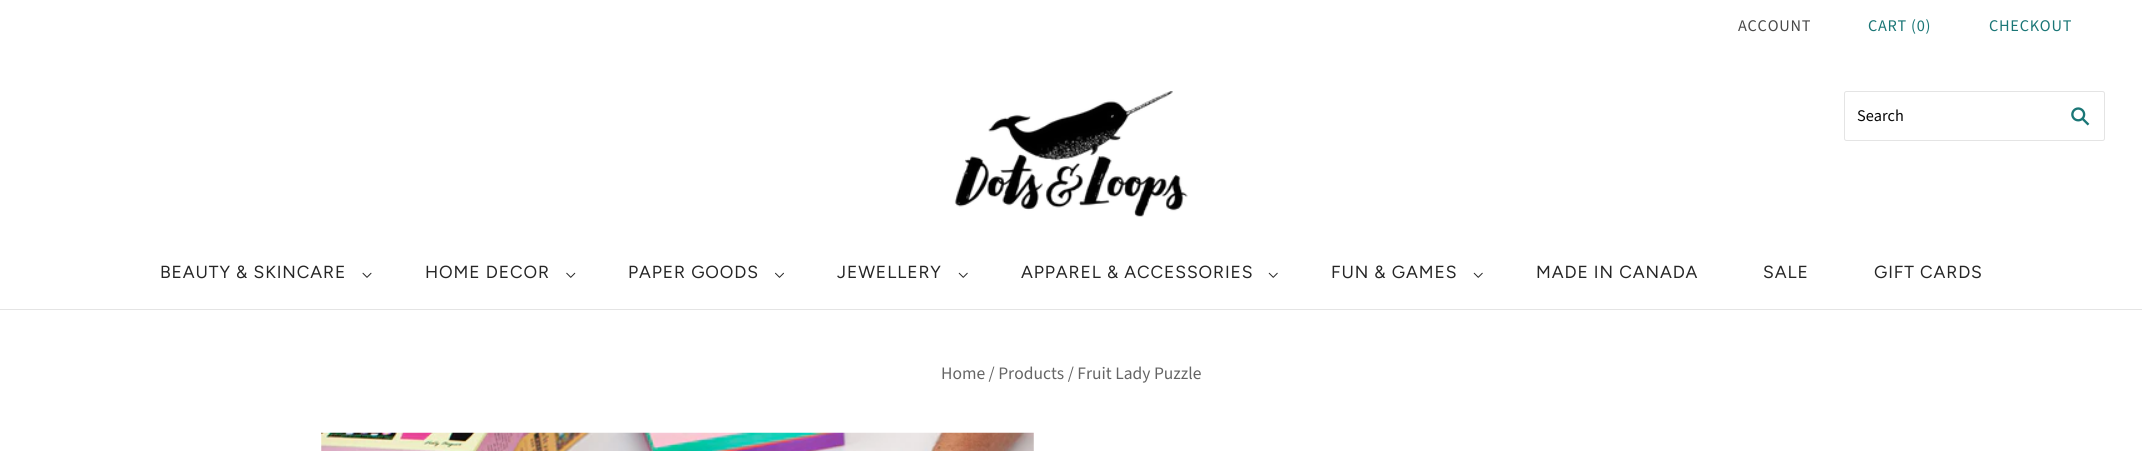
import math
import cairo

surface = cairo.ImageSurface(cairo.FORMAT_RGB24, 2142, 451)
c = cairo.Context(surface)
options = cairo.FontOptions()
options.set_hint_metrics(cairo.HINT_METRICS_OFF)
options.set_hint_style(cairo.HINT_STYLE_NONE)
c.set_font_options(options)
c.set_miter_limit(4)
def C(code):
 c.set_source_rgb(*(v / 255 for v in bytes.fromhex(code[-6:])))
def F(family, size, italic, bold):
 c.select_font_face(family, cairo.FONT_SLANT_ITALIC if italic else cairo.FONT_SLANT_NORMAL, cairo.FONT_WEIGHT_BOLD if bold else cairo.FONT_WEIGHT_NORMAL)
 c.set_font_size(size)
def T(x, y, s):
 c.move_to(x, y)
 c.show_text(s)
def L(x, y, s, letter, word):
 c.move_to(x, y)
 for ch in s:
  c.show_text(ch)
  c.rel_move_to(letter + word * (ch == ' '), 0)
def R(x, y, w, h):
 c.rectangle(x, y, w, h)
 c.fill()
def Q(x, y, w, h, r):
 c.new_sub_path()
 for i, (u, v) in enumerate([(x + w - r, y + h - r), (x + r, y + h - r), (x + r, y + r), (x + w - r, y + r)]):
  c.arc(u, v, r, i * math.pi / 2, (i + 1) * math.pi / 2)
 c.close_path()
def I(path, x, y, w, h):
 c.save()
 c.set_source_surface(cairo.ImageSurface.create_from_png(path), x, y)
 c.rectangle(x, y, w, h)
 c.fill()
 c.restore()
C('ffffff')
c.paint()
C('e4e4e4')
R(0,309,2142,1)
F('Source Sans Pro',16.25,0,0)
C('494949')
L(1738,31,'ACCOUNT',.75,0)
C('1a7676')
L(1868,31,'CART (0)',.75,0)
L(1989,31,'CHECKOUT',.75,0)
I('1.png',954,91,234,126)
Q(1844.5,91.5,260,49,2)
C('e4e4e4')
c.set_line_width(1)
c.stroke()
C('080808')
T(1857,121,'Search')
I('2.png',2071,107,19,19)
F('Figtree',17.5,0,0)
C('262626')
L(160,278,'BEAUTY & SKINCARE',.9,0)
I('3.png',362,272,10,6)
L(425,278,'HOME DECOR',.9,0)
I('4.png',566,272,10,6)
L(628,278,'PAPER GOODS',.9,0)
I('5.png',775,272,9,6)
L(837,278,'JEWELLERY',.9,0)
I('6.png',958,272,10,6)
L(1021,278,'APPAREL & ACCESSORIES',.9,0)
I('6.png',1268,272,10,6)
L(1331,278,'FUN & GAMES',.9,0)
I('6.png',1473,272,10,6)
L(1536,278,'MADE IN CANADA',.9,0)
L(1763,278,'SALE',.9,0)
L(1874,278,'GIFT CARDS',.9,0)
F('Source Sans Pro',17.5,0,0)
C('656565')
T(941,379,'Home / Products / Fruit Lady Puzzle')
I('7.png',321,432,713,19)
surface.write_to_png('o.png')
